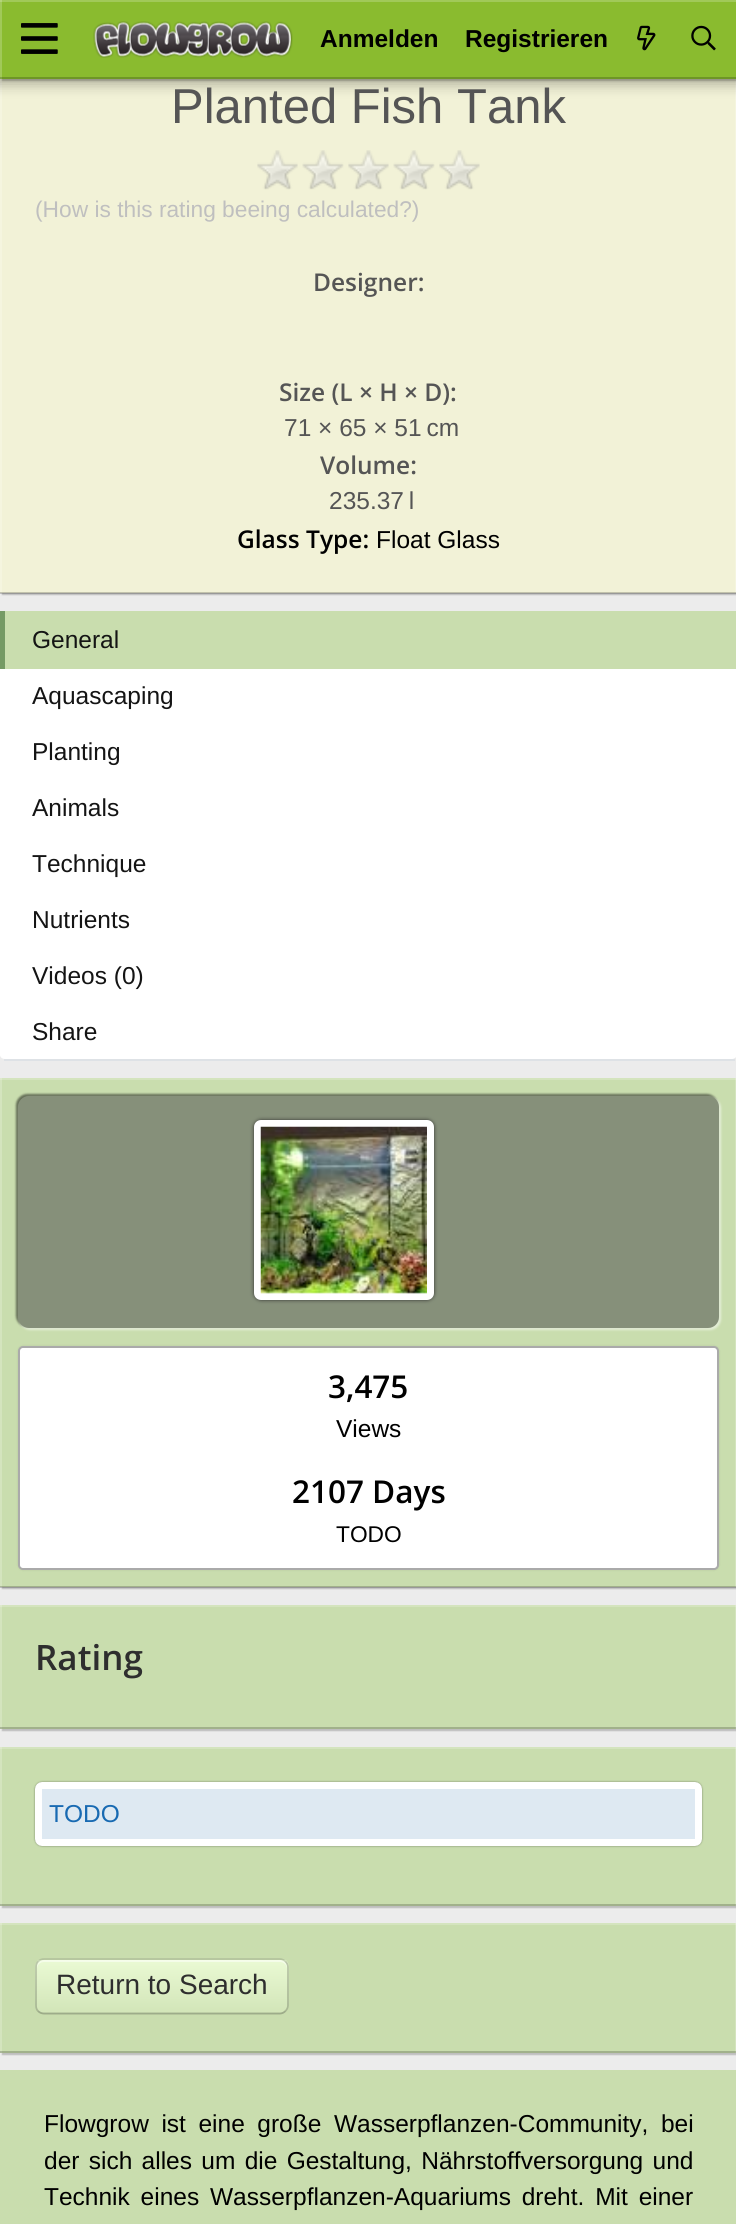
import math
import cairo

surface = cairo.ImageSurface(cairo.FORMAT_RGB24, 736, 2224)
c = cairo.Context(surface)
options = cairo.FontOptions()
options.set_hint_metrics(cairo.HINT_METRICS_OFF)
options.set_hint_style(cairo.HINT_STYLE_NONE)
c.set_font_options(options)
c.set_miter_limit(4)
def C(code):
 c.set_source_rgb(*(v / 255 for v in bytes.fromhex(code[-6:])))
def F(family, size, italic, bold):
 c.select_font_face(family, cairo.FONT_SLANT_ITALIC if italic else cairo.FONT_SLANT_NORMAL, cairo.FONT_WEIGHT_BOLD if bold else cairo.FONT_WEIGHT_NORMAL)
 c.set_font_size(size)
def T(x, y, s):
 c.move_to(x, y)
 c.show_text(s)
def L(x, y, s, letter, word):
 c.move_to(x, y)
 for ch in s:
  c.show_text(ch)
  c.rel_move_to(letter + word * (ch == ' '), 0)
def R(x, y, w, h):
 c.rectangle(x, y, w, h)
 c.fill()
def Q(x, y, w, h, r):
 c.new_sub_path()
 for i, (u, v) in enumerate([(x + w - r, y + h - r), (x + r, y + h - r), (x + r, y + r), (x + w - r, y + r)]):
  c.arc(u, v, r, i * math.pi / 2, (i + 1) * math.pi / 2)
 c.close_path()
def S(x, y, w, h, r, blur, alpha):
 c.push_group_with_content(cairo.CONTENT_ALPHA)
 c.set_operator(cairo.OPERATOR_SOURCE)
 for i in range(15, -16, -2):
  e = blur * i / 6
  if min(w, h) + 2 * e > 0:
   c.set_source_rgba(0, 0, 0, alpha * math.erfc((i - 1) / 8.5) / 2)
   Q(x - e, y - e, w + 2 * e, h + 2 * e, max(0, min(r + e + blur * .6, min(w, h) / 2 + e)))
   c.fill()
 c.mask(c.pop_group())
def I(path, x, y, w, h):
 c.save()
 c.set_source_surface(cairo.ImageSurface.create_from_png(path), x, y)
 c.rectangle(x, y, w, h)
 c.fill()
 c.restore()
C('ececec')
c.paint()
C('000000')
S(2,-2,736,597,0,.5,.2)
C('f2f2d7')
R(2,79,733,514)
C('f5f5df')
R(735,79,1,514)
R(0,79,2,514)
C('000000')
S(-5,-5,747,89,0,7,.3)
C('8abb2f')
R(2,0,734,79)
c.save()
c.set_fill_rule(cairo.FILL_RULE_EVEN_ODD)
c.new_path()
c.move_to(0,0)
c.line_to(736,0)
c.line_to(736,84)
c.line_to(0,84)
c.close_path()
c.move_to(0,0)
c.line_to(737,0)
c.line_to(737,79)
c.line_to(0,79)
c.close_path()
c.clip()
C('000000')
S(2,2,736,79,0,.5,.2)
c.restore()
C('a1c959')
R(0,0,2,79)
c.set_source_rgba(1,1,1,0.2)
R(0,0,736,2)
c.set_source_rgba(0,0,0,0.2)
R(0,77,736,2)
I('1.png',21,23,37,31)
I('2.png',93,21,200,37)
F('Liberation Sans',24.5,0,1)
C('000000')
T(320,47,'Anmelden')
T(465,47,'Registrieren')
I('3.png',637,25,19,26)
I('4.png',691,25,25,26)
c.set_source_rgba(0,0,0,0.2)
R(0,592,736,2)
F('Liberation Sans',49,0,0)
C('555555')
T(171,123,'Planted Fish Tank')
I('5.png',257,150,41,40)
I('6.png',302,150,42,40)
I('5.png',348,150,41,40)
I('6.png',393,150,42,40)
I('5.png',439,150,41,40)
F('Liberation Sans',22.75,0,0)
C('bfbfbf')
T(35,217,'(How is this rating beeing calculated?)')
F('Open Sans SemiBold',24.5,0,0)
C('555555')
T(313,291,'Designer:')
T(279,401,'Size (L × H × D):')
F('Liberation Sans',24.5,0,0)
T(284,436,'71 × 65 × 51 cm')
F('Open Sans SemiBold',24.5,0,0)
T(320,474,'Volume:')
F('Liberation Sans',24.5,0,0)
T(329,509,'235.37 l')
F('Open Sans SemiBold',24.5,0,0)
C('000000')
T(237,548,'Glass Type:')
F('Liberation Sans',24.5,0,0)
T(376,548,'Float Glass')
C('ffffff')
c.new_path()
c.move_to(5,611)
c.line_to(732,611)
c.curve_to(734,611,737,613,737,616)
c.line_to(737,1055)
c.curve_to(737,1057,734,1059,732,1059)
c.line_to(5,1059)
c.curve_to(2,1059,0,1057,0,1055)
c.line_to(0,616)
c.curve_to(0,613,2,611,5,611)
c.close_path()
c.fill()
C('dee2e6')
R(4,1059,731,2)
C('c9ddae')
R(5,611,731,58)
C('759a65')
R(0,611,5,58)
C('141414')
T(32,648,'General')
T(32,704,'Aquascaping')
T(32,760,'Planting')
T(32,816,'Animals')
T(32,872,'Technique')
T(32,928,'Nutrients')
T(32,984,'Videos (0)')
T(32,1040,'Share')
C('000000')
S(2,1080,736,509,0,.5,.2)
C('c9ddae')
R(2,1080,733,507)
C('d4e4be')
R(0,1078,736,2)
R(735,1078,1,509)
C('dde9cb')
R(735,1078,1,2)
C('d4e4be')
R(0,1078,2,509)
C('dde9cb')
R(0,1078,2,2)
c.set_source_rgba(0,0,0,0.2)
R(0,1586,736,2)
C('000000')
S(16,1094,702,233,11,1,.5)
C('ffffff')
S(19,1097,702,233,11,1,.5)
C('86907a')
Q(18,1096,701,232,11)
c.fill()
C('303030')
S(254,1120,180,180,7,2,1)
C('ffffff')
Q(254,1120,180,180,7)
c.fill()
I('7.png',260,1126,167,168)
C('000000')
S(18,1346,701,224,5,1,.1)
C('ffffff')
Q(19,1347,699,222,4)
c.fill_preserve()
C('aaaaaa')
c.stroke()
F('Open Sans SemiBold',31.5,0,0)
C('000000')
T(328,1398,'3,475')
F('Liberation Sans',24.5,0,0)
T(336,1437,'Views')
F('Open Sans SemiBold',31.5,0,0)
T(292,1503,'2107 Days')
F('Liberation Sans',22.75,0,0)
T(336,1542,'TODO')
C('000000')
S(2,1607,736,124,0,.5,.2)
C('c9ddae')
R(2,1607,733,120)
C('a1b18b')
R(0,1727,736,2)
C('d4e4be')
R(0,1605,736,2)
R(735,1605,1,124)
C('aab698')
R(735,1727,1,2)
C('dde9cb')
R(735,1605,1,2)
C('d4e4be')
R(0,1605,2,124)
C('aab698')
R(0,1727,2,2)
C('dde9cb')
R(0,1605,2,2)
F('Open Sans SemiBold',35,0,0)
C('2e2e2e')
T(35,1670,'Rating')
C('000000')
S(2,1748,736,160,0,.5,.2)
C('c9ddae')
R(2,1749,733,157)
C('d4e4be')
R(0,1747,736,2)
R(735,1747,1,159)
C('dde9cb')
R(735,1747,1,2)
C('d4e4be')
R(0,1747,2,159)
C('dde9cb')
R(0,1747,2,2)
c.set_source_rgba(0,0,0,0.2)
R(0,1904,736,2)
C('000000')
S(35,1782,667,64,7,1,.4)
C('dee9f2')
Q(38.5,1785.5,660,57,3.5)
c.fill_preserve()
C('ffffff')
c.set_line_width(7)
c.stroke()
F('Liberation Sans',24.5,0,0)
C('186ab2')
T(49,1822,'TODO')
C('000000')
S(2,1925,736,130,0,.5,.2)
C('c9ddae')
R(2,1925,733,128)
C('d4e4be')
R(0,1923,736,2)
R(735,1923,1,130)
C('dde9cb')
R(735,1923,1,2)
C('d4e4be')
R(0,1923,2,130)
C('dde9cb')
R(0,1923,2,2)
c.set_source_rgba(0,0,0,0.2)
R(0,2051,736,2)
C('d2e5b8')
Q(35,1958,254,56,9)
c.fill()
c.save()
Q(35,1958,254,56,9)
c.clip()
gradient = cairo.LinearGradient(162,1960,162,2013)
gradient.add_color_stop_rgba(0,0.918,0.98,0.831,1)
gradient.add_color_stop_rgba(1,0.824,0.898,0.722,1)
c.set_source(gradient)
R(35,1960,254,53)
c.restore()
c.set_source_rgba(1,1,1,0.5)
c.new_path()
c.move_to(44,1962)
c.line_to(280,1962)
c.curve_to(284,1962,287,1965,287,1969)
c.line_to(287,1967)
c.curve_to(287,1963,284,1960,280,1960)
c.line_to(44,1960)
c.curve_to(40,1960,37,1963,37,1967)
c.line_to(37,1969)
c.curve_to(37,1965,40,1962,44,1962)
c.close_path()
c.fill()
c.new_path()
c.move_to(38,1961.5)
c.curve_to(39.5,1960,41.5,1959,44,1959)
c.line_to(280,1959)
c.curve_to(282,1959,284,1960,285.5,1961.5)
c.set_source_rgba(0,0,0,0.15)
c.set_line_width(1.8)
c.stroke()
c.new_path()
c.move_to(285.5,1961.5)
c.curve_to(287,1963,288,1965,288,1967)
c.line_to(288,2005.5)
c.curve_to(288,2007.5,287,2009.5,285.5,2011)
c.set_source_rgba(0,0,0,0.2)
c.stroke()
c.new_path()
c.move_to(285.5,2011)
c.curve_to(284,2012.5,282,2013.5,280,2013.5)
c.line_to(44,2013.5)
c.curve_to(41.5,2013.5,39.5,2012.5,38,2011)
c.set_source_rgba(0,0,0,0.25)
c.stroke()
c.new_path()
c.move_to(38,2011)
c.curve_to(36.5,2009.5,36,2007.5,36,2005.5)
c.line_to(36,1967)
c.curve_to(36,1965,36.5,1963,38,1961.5)
c.set_source_rgba(0,0,0,0.2)
c.stroke()
F('Liberation Sans',28,0,0)
C('2e2e2e')
T(56,1994,'Return to Search')
C('c9ddae')
R(0,2070,736,154)
F('Liberation Sans',24.5,0,0)
C('000000')
L(44,2132,'Flowgrow ist eine große Wasserpflanzen-Community, bei',0,5.75)
L(44,2169,'der sich alles um die Gestaltung, Nährstoffversorgung und',0,2.5)
L(44,2205,'Technik eines Wasserpflanzen-Aquariums dreht. Mit einer',0,4)
surface.write_to_png('o.png')
